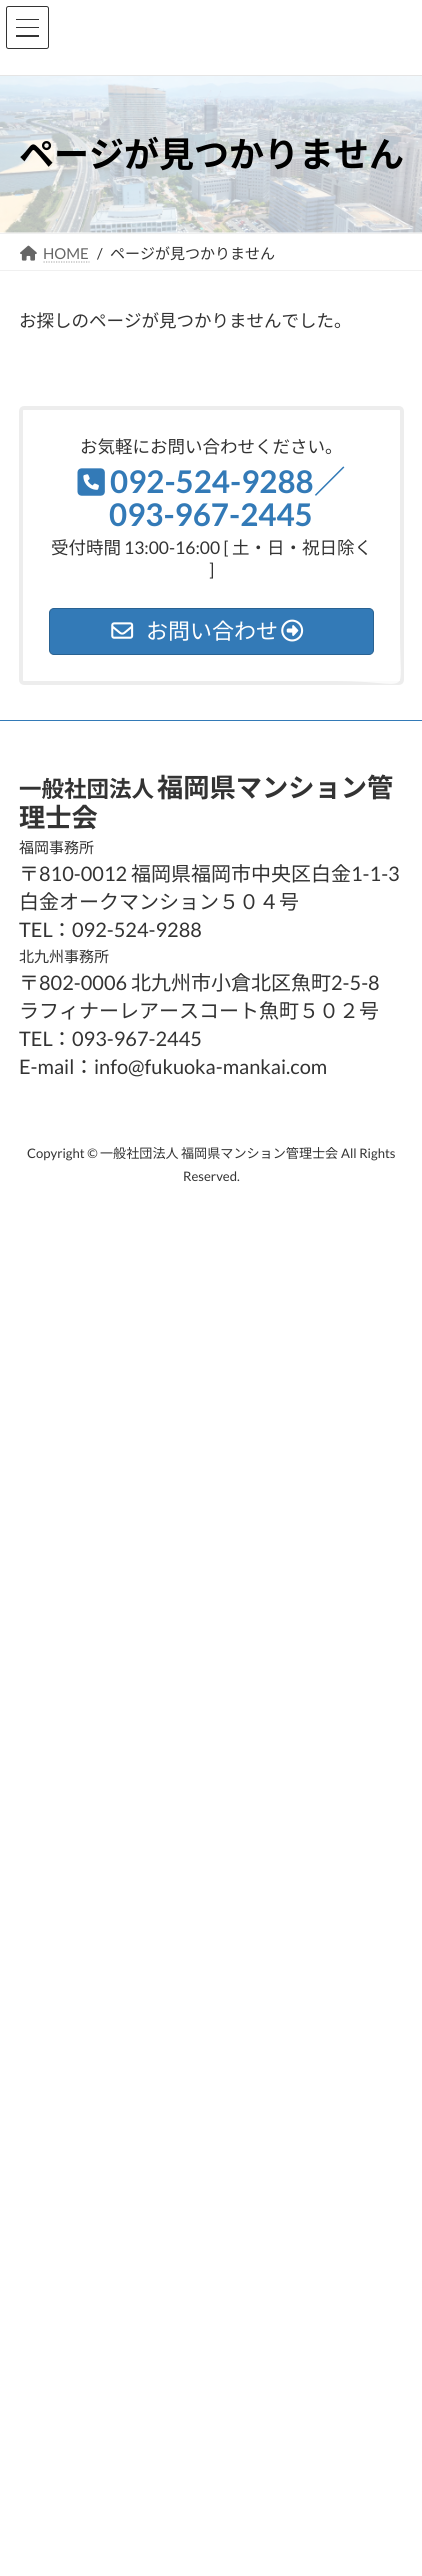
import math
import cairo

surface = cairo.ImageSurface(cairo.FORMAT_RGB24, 422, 2576)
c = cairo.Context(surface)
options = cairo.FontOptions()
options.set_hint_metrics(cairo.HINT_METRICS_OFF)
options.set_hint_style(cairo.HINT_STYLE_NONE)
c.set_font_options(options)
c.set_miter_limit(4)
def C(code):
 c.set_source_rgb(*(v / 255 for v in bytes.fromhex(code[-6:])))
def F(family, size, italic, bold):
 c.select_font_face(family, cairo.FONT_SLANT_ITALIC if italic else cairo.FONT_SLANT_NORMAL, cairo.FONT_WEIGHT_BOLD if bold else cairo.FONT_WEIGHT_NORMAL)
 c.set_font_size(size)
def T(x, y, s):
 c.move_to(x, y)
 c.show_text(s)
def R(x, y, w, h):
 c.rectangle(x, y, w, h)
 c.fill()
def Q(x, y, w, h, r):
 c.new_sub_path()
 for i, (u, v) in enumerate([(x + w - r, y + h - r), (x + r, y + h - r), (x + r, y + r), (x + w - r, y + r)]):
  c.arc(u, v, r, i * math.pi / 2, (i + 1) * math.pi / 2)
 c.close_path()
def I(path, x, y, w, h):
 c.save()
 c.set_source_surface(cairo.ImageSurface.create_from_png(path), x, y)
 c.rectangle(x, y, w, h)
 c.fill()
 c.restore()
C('ffffff')
c.paint()
C('333333')
R(16,19,23,1)
R(16,27,23,1)
R(16,35,23,2)
Q(6.5,6.5,42,42,2)
c.set_line_width(1)
c.stroke()
C('e5e5e5')
R(0,75,422,1)
I('1.png',0,76,422,157)
F('Noto Sans JP',35,0,1)
C('000000')
T(19,167,'ページが見つかりません')
C('f0f0f0')
R(0,233,422,1)
R(0,270,422,1)
I('2.png',20,245,17,16)
F('Lato',15,0,0)
C('666666')
T(43,259,'HOME')
c.new_path()
c.move_to(43.5,262)
c.line_to(89.5,262)
C('b3b3b3')
c.set_line_width(1.2)
c.set_dash([1.25,1.25])
c.stroke()
C('333333')
T(97,259,'/')
F('Noto Sans JP',15,0,0)
T(110,259,'ページが見つかりません')
F('Noto Sans JP',17.5,0,0)
T(19,327,'お探しのページが見つかりませんでした。')
Q(21,408,381,275,3)
C('ededed')
c.set_line_width(4)
c.set_dash([])
c.stroke()
c.set_source_rgba(1,1,1,0.8)
c.set_fill_rule(cairo.FILL_RULE_EVEN_ODD)
c.new_path()
c.move_to(24,410)
c.line_to(23,411)
c.line_to(23,680)
c.line_to(24,681)
c.line_to(336,681)
c.curve_to(414,681,400,701,400,635)
c.line_to(400,411)
c.line_to(399,410)
c.close_path()
c.move_to(24,411)
c.line_to(24,680)
c.line_to(399,680)
c.line_to(399,411)
c.close_path()
c.fill()
C('333333')
T(80,453,'お気軽にお問い合わせください。')
I('3.png',77,468,28,28)
F('Lato',31.25,0,1)
C('337ab7')
T(110,493,'092-524-9288')
F('Noto Sans JP',31.25,0,1)
T(314,493,'／')
F('Lato',31.25,0,1)
T(109,526,'093-967-2445')
F('Noto Sans JP',17.5,0,0)
C('333333')
T(51,554,'受付時間')
F('Lato',17.5,0,0)
T(124,554,'13:00-16:00 [')
F('Noto Sans JP',17.5,0,0)
T(232,554,'土・日・祝日除く')
F('Lato',17.5,0,0)
T(209,576,']')
C('337ab7')
Q(49.5,608.5,324,46,4.5)
c.fill_preserve()
C('296292')
c.set_line_width(1)
c.stroke()
I('4.png',111,622,23,17)
F('Noto Sans JP',22,0,0)
C('ffffff')
T(146,639,'お問い合わせ')
I('5.png',281,619,23,23)
C('337ab7')
R(0,720,422,1)
F('Noto Sans JP',22.5,0,1)
C('333333')
T(19,797,'一般社団法人')
F('Noto Sans JP',26.25,0,1)
T(157,797,'福岡県マンション管')
T(19,827,'理士会')
F('Noto Sans JP',15,0,0)
T(19,853,'福岡事務所')
F('Noto Sans JP',20,0,0)
T(19,881,'〒')
F('Lato',20,0,0)
T(39,881,'810-0012')
F('Noto Sans JP',20,0,0)
T(131,881,'福岡県福岡市中央区白金')
F('Lato',20,0,0)
T(351,881,'1-1-3')
F('Noto Sans JP',20,0,0)
T(19,909,'白金オークマンション５０４号')
F('Lato',20,0,0)
T(19,937,'TEL')
F('Noto Sans JP',20,0,0)
T(52,937,'：')
F('Lato',20,0,0)
T(72,937,'092-524-9288')
F('Noto Sans JP',15,0,0)
T(19,962,'北九州事務所')
F('Noto Sans JP',20,0,0)
T(19,990,'〒')
F('Lato',20,0,0)
T(39,990,'802-0006')
F('Noto Sans JP',20,0,0)
T(131,990,'北九州市小倉北区魚町')
F('Lato',20,0,0)
T(331,990,'2-5-8')
F('Noto Sans JP',20,0,0)
T(19,1018,'ラフィナーレアースコート魚町５０２号')
F('Lato',20,0,0)
T(19,1046,'TEL')
F('Noto Sans JP',20,0,0)
T(52,1046,'：')
F('Lato',20,0,0)
T(72,1046,'093-967-2445')
T(19,1074,'E-mail')
F('Noto Sans JP',20,0,0)
T(74,1074,'：')
F('Lato',20,0,0)
T(94,1074,'info@fukuoka-mankai.com')
F('Lato',13.1,0,0)
T(27,1158,'Copyright ©')
F('Noto Sans JP',13.1,0,0)
T(100,1158,'一般社団法人')
T(181,1158,'福岡県マンション管理士会')
F('Lato',13.1,0,0)
T(341,1158,'All Rights')
T(183,1181,'Reserved.')
surface.write_to_png('o.png')
